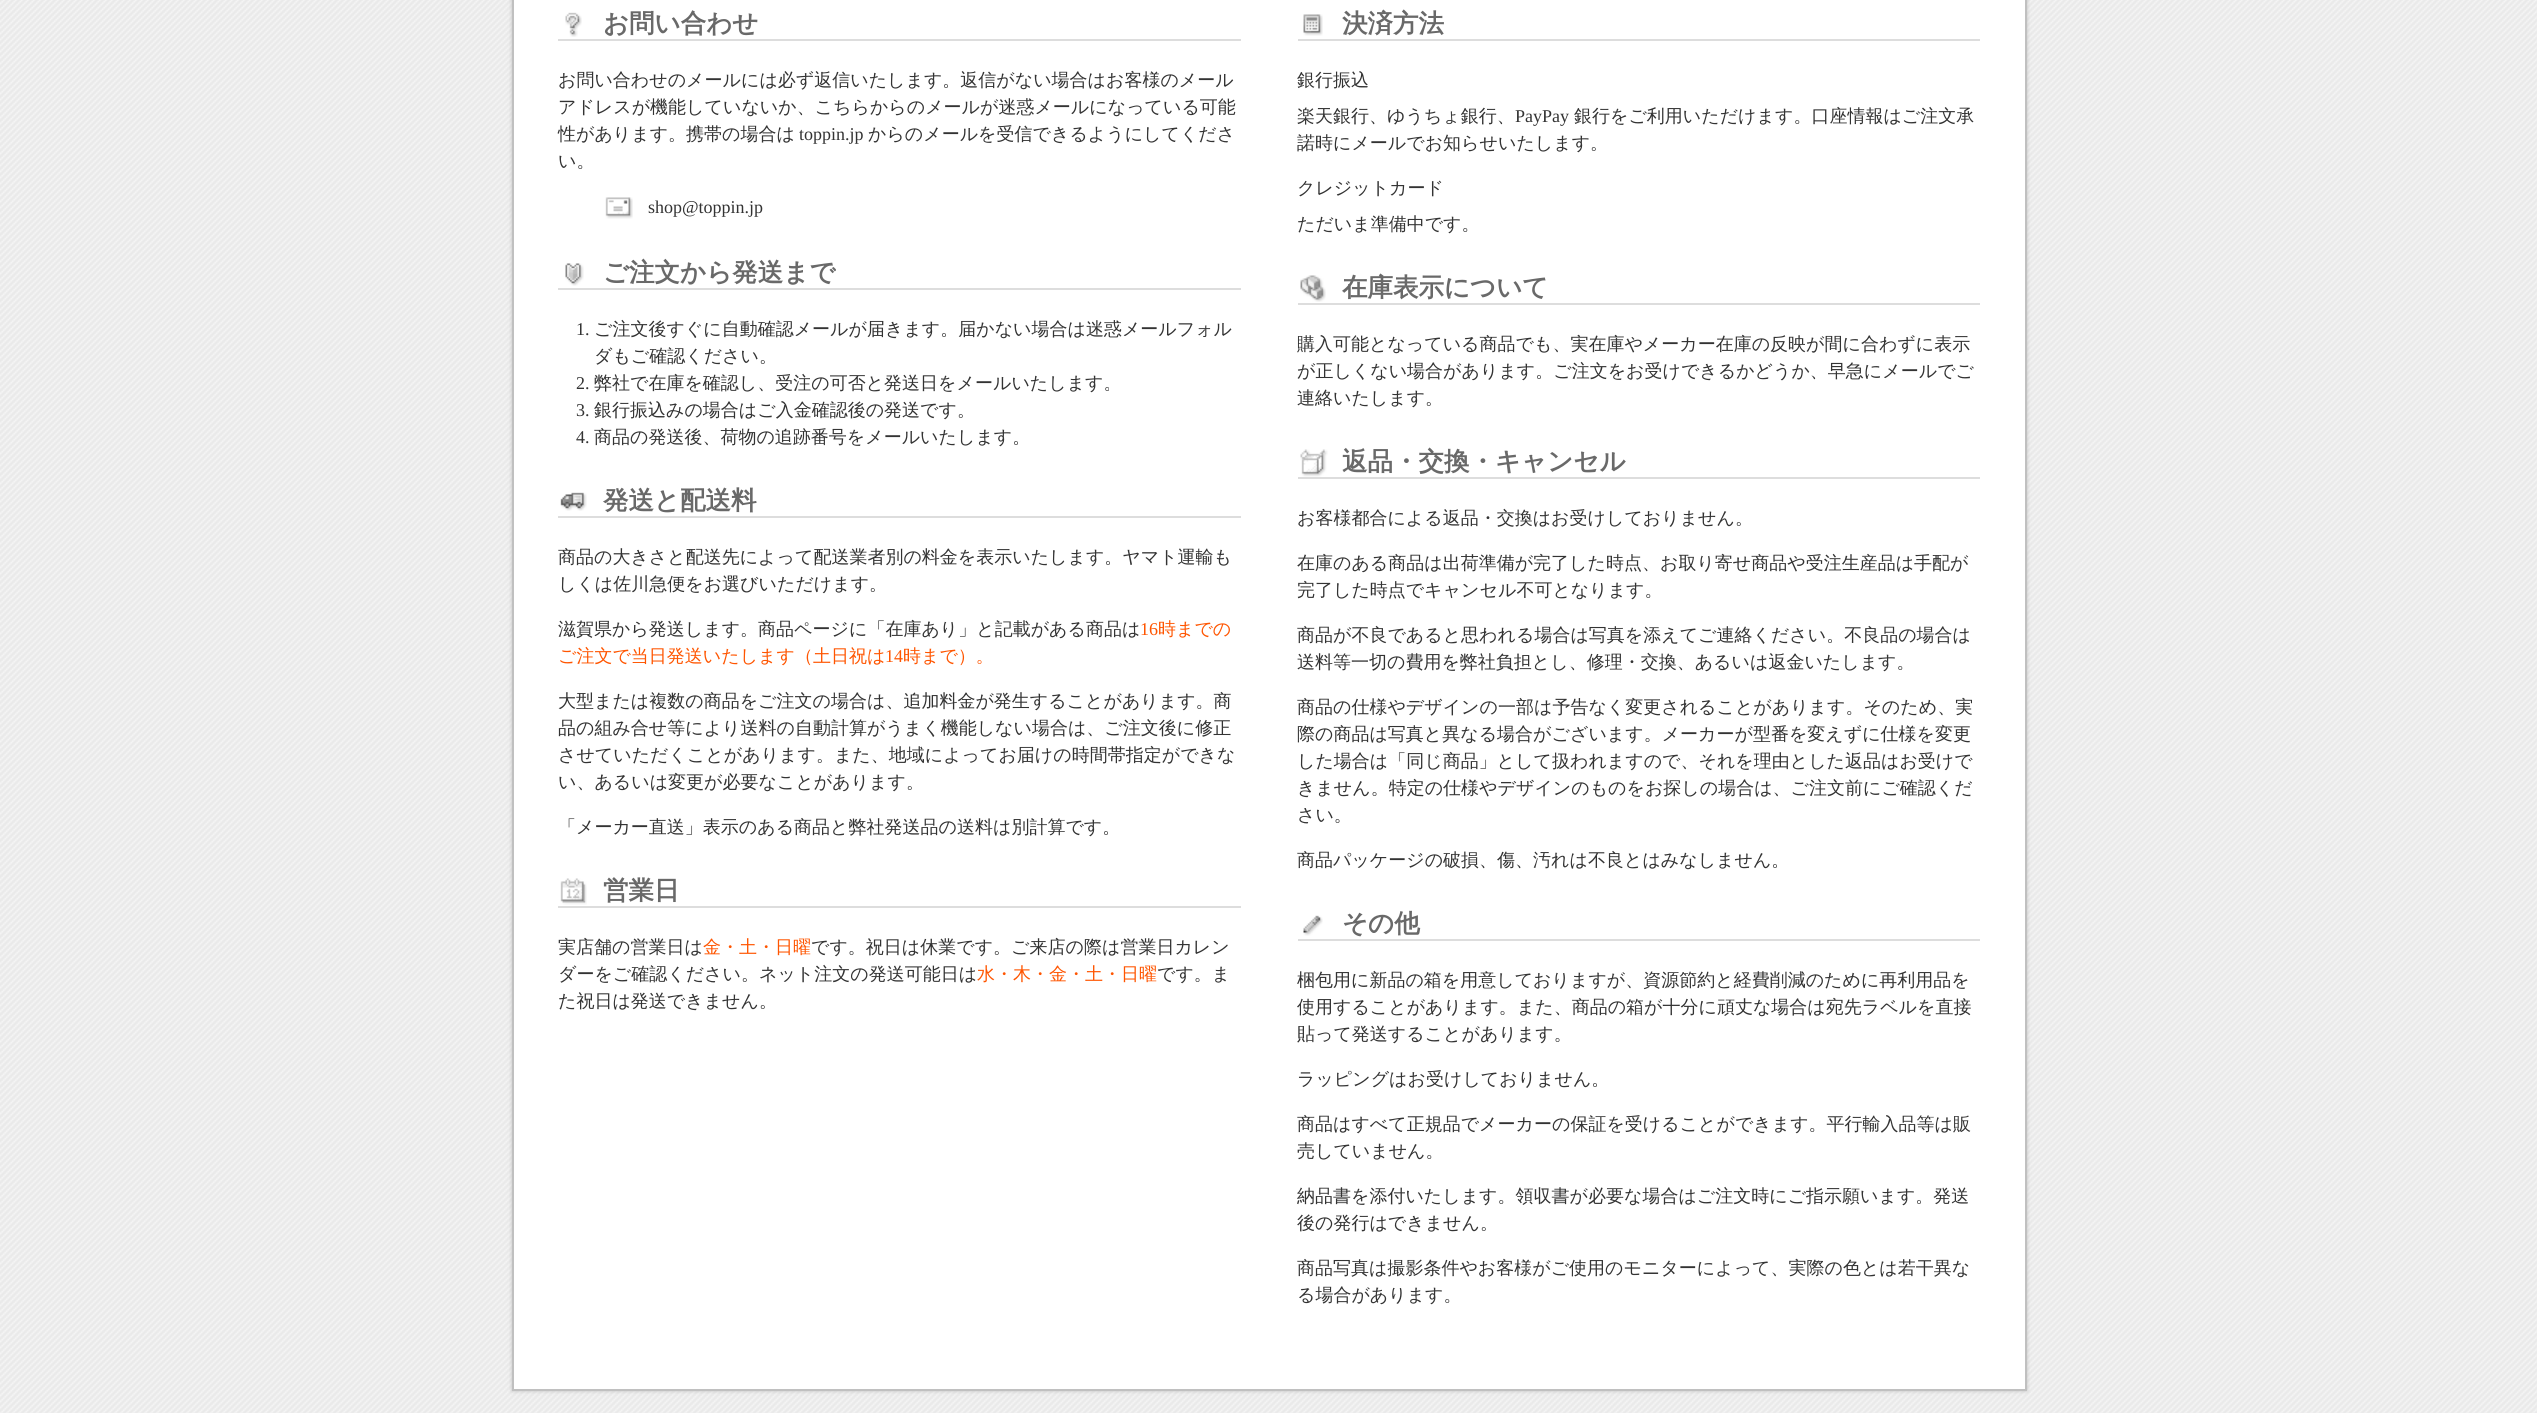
import math
import cairo

surface = cairo.ImageSurface(cairo.FORMAT_RGB24, 2537, 1413)
c = cairo.Context(surface)
options = cairo.FontOptions()
options.set_hint_metrics(cairo.HINT_METRICS_OFF)
options.set_hint_style(cairo.HINT_STYLE_NONE)
c.set_font_options(options)
c.set_miter_limit(4)
def C(code):
 c.set_source_rgb(*(v / 255 for v in bytes.fromhex(code[-6:])))
def F(family, size, italic, bold):
 c.select_font_face(family, cairo.FONT_SLANT_ITALIC if italic else cairo.FONT_SLANT_NORMAL, cairo.FONT_WEIGHT_BOLD if bold else cairo.FONT_WEIGHT_NORMAL)
 c.set_font_size(size)
def T(x, y, s):
 c.move_to(x, y)
 c.show_text(s)
def R(x, y, w, h):
 c.rectangle(x, y, w, h)
 c.fill()
def Q(x, y, w, h, r):
 c.new_sub_path()
 for i, (u, v) in enumerate([(x + w - r, y + h - r), (x + r, y + h - r), (x + r, y + r), (x + w - r, y + r)]):
  c.arc(u, v, r, i * math.pi / 2, (i + 1) * math.pi / 2)
 c.close_path()
def S(x, y, w, h, r, blur, alpha):
 c.push_group_with_content(cairo.CONTENT_ALPHA)
 c.set_operator(cairo.OPERATOR_SOURCE)
 for i in range(15, -16, -2):
  e = blur * i / 6
  if min(w, h) + 2 * e > 0:
   c.set_source_rgba(0, 0, 0, alpha * math.erfc((i - 1) / 8.5) / 2)
   Q(x - e, y - e, w + 2 * e, h + 2 * e, max(0, min(r + e + blur * .6, min(w, h) / 2 + e)))
   c.fill()
 c.mask(c.pop_group())
def I(path, x, y, w, h):
 c.save()
 c.set_source_surface(cairo.ImageSurface.create_from_png(path), x, y)
 c.rectangle(x, y, w, h)
 c.fill()
 c.restore()
C('ffffff')
c.paint()
I('1.png',0,0,2537,1413)
C('c0c0c0')
S(512,-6,1515,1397,0,2,1)
C('ffffff')
c.rectangle(513,-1,1513,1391)
c.fill_preserve()
C('c0c0c0')
c.stroke()
I('2.png',565,12,17,25)
C('dddddd')
R(558,39,683,2)
F('WenQuanYi Zen Hei',25.5,0,1)
C('696969')
T(603,32,'お問い合わせ')
F('WenQuanYi Zen Hei Medium',18,0,0)
C('333333')
T(558,86,'お問い合わせのメールには必ず返信いたします。返信がない場合はお客様のメール')
T(558,113,'アドレスが機能していないか、こちらからのメールが迷惑メールになっている可能')
T(558,140,'性があります。携帯の場合は')
F('Liberation Serif',18,0,0)
T(799,140,'toppin.jp')
F('WenQuanYi Zen Hei Medium',18,0,0)
T(868,140,'からのメールを受信できるようにしてくださ')
T(558,167,'い。')
I('3.png',605,197,28,22)
F('Liberation Serif',18,0,0)
T(648,213,'shop@toppin.jp')
I('4.png',565,263,19,23)
C('dddddd')
R(558,288,683,2)
F('WenQuanYi Zen Hei',25.5,0,1)
C('696969')
T(603,281,'ご注文から発送まで')
F('Liberation Serif',18,0,0)
C('333333')
T(576,335,'1.')
F('WenQuanYi Zen Hei Medium',18,0,0)
T(594,335,'ご注文後すぐに自動確認メールが届きます。届かない場合は迷惑メールフォル')
T(594,362,'ダもご確認ください。')
F('Liberation Serif',18,0,0)
T(576,389,'2.')
F('WenQuanYi Zen Hei Medium',18,0,0)
T(594,389,'弊社で在庫を確認し、受注の可否と発送日をメールいたします。')
F('Liberation Serif',18,0,0)
T(576,416,'3.')
F('WenQuanYi Zen Hei Medium',18,0,0)
T(594,416,'銀行振込みの場合はご入金確認後の発送です。')
F('Liberation Serif',18,0,0)
T(576,443,'4.')
F('WenQuanYi Zen Hei Medium',18,0,0)
T(594,443,'商品の発送後、荷物の追跡番号をメールいたします。')
I('5.png',560,492,27,19)
C('dddddd')
R(558,516,683,2)
F('WenQuanYi Zen Hei',25.5,0,1)
C('696969')
T(603,509,'発送と配送料')
F('WenQuanYi Zen Hei Medium',18,0,0)
C('333333')
T(558,563,'商品の大きさと配送先によって配送業者別の料金を表示いたします。ヤマト運輸も')
T(558,590,'しくは佐川急便をお選びいただけます。')
T(558,635,'滋賀県から発送します。商品ページに「在庫あり」と記載がある商品は')
F('Liberation Serif',18,0,0)
C('ff5500')
T(1140,635,'16')
F('WenQuanYi Zen Hei Medium',18,0,0)
T(1158,635,'時までの')
T(558,662,'ご注文で当日発送いたします（土日祝は')
F('Liberation Serif',18,0,0)
T(885,662,'14')
F('WenQuanYi Zen Hei Medium',18,0,0)
T(903,662,'時まで）。')
C('333333')
T(558,707,'大型または複数の商品をご注文の場合は、追加料金が発生することがあります。商')
T(558,734,'品の組み合せ等により送料の自動計算がうまく機能しない場合は、ご注文後に修正')
T(558,761,'させていただくことがあります。また、地域によってお届けの時間帯指定ができな')
T(558,788,'い、あるいは変更が必要なことがあります。')
T(558,833,'「メーカー直送」表示のある商品と弊社発送品の送料は別計算です。')
I('6.png',560,878,27,27)
C('dddddd')
R(558,906,683,2)
F('WenQuanYi Zen Hei',25.5,0,1)
C('696969')
T(603,899,'営業日')
F('WenQuanYi Zen Hei Medium',18,0,0)
C('333333')
T(558,953,'実店舗の営業日は')
C('ff5500')
T(703,953,'金・土・日曜')
C('333333')
T(811,953,'です。祝日は休業です。ご来店の際は営業日カレン')
T(558,980,'ダーをご確認ください。ネット注文の発送可能日は')
C('ff5500')
T(977,980,'水・木・金・土・日曜')
C('333333')
T(1157,980,'です。ま')
T(558,1007,'た祝日は発送できません。')
I('7.png',1303,14,20,22)
C('dddddd')
R(1298,39,682,2)
F('WenQuanYi Zen Hei',25.5,0,1)
C('696969')
T(1342,32,'決済方法')
F('WenQuanYi Zen Hei Medium',18,0,0)
C('333333')
T(1297,86,'銀行振込')
T(1297,122,'楽天銀行、ゆうちょ銀行、')
F('Liberation Serif',18,0,0)
T(1515,122,'PayPay')
F('WenQuanYi Zen Hei Medium',18,0,0)
T(1574,122,'銀行をご利用いただけます。口座情報はご注文承')
T(1297,149,'諾時にメールでお知らせいたします。')
T(1297,194,'クレジットカード')
T(1297,230,'ただいま準備中です。')
I('8.png',1300,275,26,27)
C('dddddd')
R(1298,303,682,2)
F('WenQuanYi Zen Hei',25.5,0,1)
C('696969')
T(1342,296,'在庫表示について')
F('WenQuanYi Zen Hei Medium',18,0,0)
C('333333')
T(1297,350,'購入可能となっている商品でも、実在庫やメーカー在庫の反映が間に合わずに表示')
T(1297,377,'が正しくない場合があります。ご注文をお受けできるかどうか、早急にメールでご')
T(1297,404,'連絡いたします。')
I('9.png',1300,449,28,28)
C('dddddd')
R(1298,477,682,2)
F('WenQuanYi Zen Hei',25.5,0,1)
C('696969')
T(1342,470,'返品・交換・キャンセル')
F('WenQuanYi Zen Hei Medium',18,0,0)
C('333333')
T(1297,524,'お客様都合による返品・交換はお受けしておりません。')
T(1297,569,'在庫のある商品は出荷準備が完了した時点、お取り寄せ商品や受注生産品は手配が')
T(1297,596,'完了した時点でキャンセル不可となります。')
T(1297,641,'商品が不良であると思われる場合は写真を添えてご連絡ください。不良品の場合は')
T(1297,668,'送料等一切の費用を弊社負担とし、修理・交換、あるいは返金いたします。')
T(1297,713,'商品の仕様やデザインの一部は予告なく変更されることがあります。そのため、実')
T(1297,740,'際の商品は写真と異なる場合がございます。メーカーが型番を変えずに仕様を変更')
T(1297,767,'した場合は「同じ商品」として扱われますので、それを理由とした返品はお受けで')
T(1297,794,'きません。特定の仕様やデザインのものをお探しの場合は、ご注文前にご確認くだ')
T(1297,821,'さい。')
T(1297,866,'商品パッケージの破損、傷、汚れは不良とはみなしません。')
I('10.png',1303,915,20,21)
C('dddddd')
R(1298,939,682,2)
F('WenQuanYi Zen Hei',25.5,0,1)
C('696969')
T(1342,932,'その他')
F('WenQuanYi Zen Hei Medium',18,0,0)
C('333333')
T(1297,986,'梱包用に新品の箱を用意しておりますが、資源節約と経費削減のために再利用品を')
T(1297,1013,'使用することがあります。また、商品の箱が十分に頑丈な場合は宛先ラベルを直接')
T(1297,1040,'貼って発送することがあります。')
T(1297,1085,'ラッピングはお受けしておりません。')
T(1297,1130,'商品はすべて正規品でメーカーの保証を受けることができます。平行輸入品等は販')
T(1297,1157,'売していません。')
T(1297,1202,'納品書を添付いたします。領収書が必要な場合はご注文時にご指示願います。発送')
T(1297,1229,'後の発行はできません。')
T(1297,1274,'商品写真は撮影条件やお客様がご使用のモニターによって、実際の色とは若干異な')
T(1297,1301,'る場合があります。')
surface.write_to_png('o.png')
